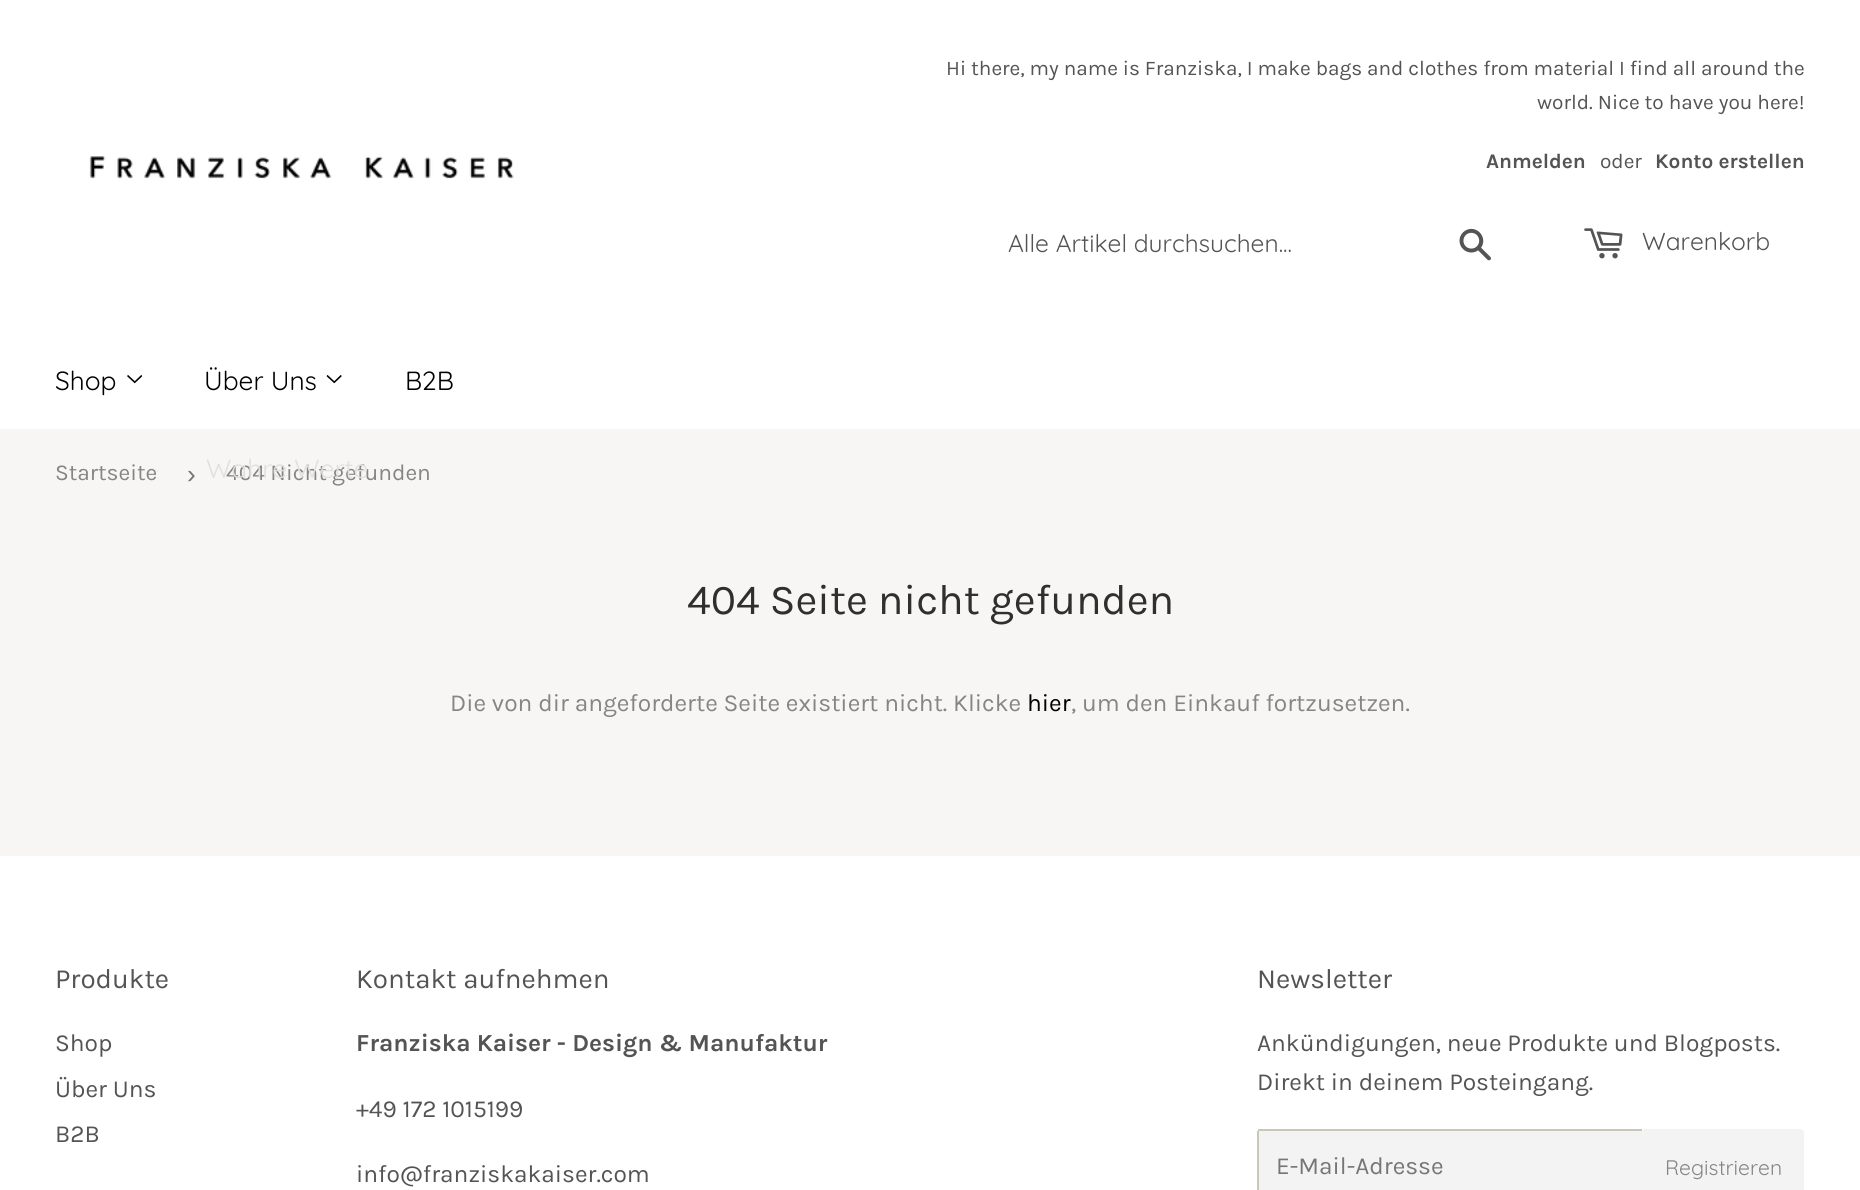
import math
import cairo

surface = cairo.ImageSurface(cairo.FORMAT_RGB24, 1860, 1190)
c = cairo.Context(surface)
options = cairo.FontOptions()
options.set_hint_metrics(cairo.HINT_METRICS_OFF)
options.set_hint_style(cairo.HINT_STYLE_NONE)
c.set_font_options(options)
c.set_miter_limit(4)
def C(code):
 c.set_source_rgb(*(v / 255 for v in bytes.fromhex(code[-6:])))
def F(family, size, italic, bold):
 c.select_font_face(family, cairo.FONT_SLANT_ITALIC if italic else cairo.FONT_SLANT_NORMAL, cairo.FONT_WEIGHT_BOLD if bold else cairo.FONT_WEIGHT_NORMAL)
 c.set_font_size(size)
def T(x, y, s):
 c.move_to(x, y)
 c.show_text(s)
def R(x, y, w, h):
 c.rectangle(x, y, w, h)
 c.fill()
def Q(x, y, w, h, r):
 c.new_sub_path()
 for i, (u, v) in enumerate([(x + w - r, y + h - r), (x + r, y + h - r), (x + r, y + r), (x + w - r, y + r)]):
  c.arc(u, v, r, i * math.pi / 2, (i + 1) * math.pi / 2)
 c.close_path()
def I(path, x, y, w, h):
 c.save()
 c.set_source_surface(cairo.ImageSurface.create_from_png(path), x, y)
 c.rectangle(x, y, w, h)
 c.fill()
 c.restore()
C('f7f6f4')
c.paint()
C('ffffff')
R(0,0,1860,429)
I('1.png',89,156,425,23)
F('Karla',20.8,0,0)
C('545454')
T(946,75,'Hi there, my name is Franziska, I make bags and clothes from material I find all around the')
T(1537,109,'world. Nice to have you here!')
F('Karla',20.8,0,1)
T(1486,168,'Anmelden')
F('Karla',20.8,0,0)
T(1600,168,'oder')
F('Karla',20.8,0,1)
T(1655,168,'Konto erstellen')
F('Quicksand',24.5,0,0)
T(1008,252,'Alle Artikel durchsuchen...')
I('2.png',1459,228,32,33)
I('3.png',1584,228,39,31)
T(1642,250,'Warenkorb')
F('Quicksand',26.25,0,0)
C('000000')
T(55,390,'Shop')
I('4.png',127,375,16,9)
T(204,390,'Über Uns')
I('5.png',326,375,16,9)
F('Karla',22.75,0,0)
C('858585')
T(226,480,'404 Nicht gefunden')
F('Quicksand',26.25,0,0)
C('e1e0df')
T(206,478,'Wahre Werte')
C('000000')
T(405,390,'B2B')
F('Karla',22.75,0,0)
C('858585')
T(55,480,'Startseite')
F('Liberation Sans',26.25,0,0)
C('767676')
T(187,483,'›')
F('Karla',42.5,0,0)
C('2f2f2f')
T(687,614,'404 Seite nicht gefunden')
F('Karla',24.5,0,0)
C('858585')
T(450,711,'Die von dir angeforderte Seite existiert nicht. Klicke')
C('000000')
T(1027,711,'hier')
C('858585')
T(1071,711,', um den Einkauf fortzusetzen.')
C('ffffff')
R(0,856,1860,334)
F('Karla',27.75,0,0)
C('545454')
T(55,988,'Produkte')
F('Karla',24.5,0,0)
T(55,1051,'Shop')
T(55,1097,'Über Uns')
T(55,1142,'B2B')
F('Karla',27.75,0,0)
T(356,988,'Kontakt aufnehmen')
F('Karla',24.5,0,1)
T(356,1051,'Franziska Kaiser - Design & Manufaktur')
F('Karla',24.5,0,0)
T(356,1117,'+49 172 1015199')
T(356,1182,'info@franziskakaiser.com')
F('Karla',27.75,0,0)
T(1257,988,'Newsletter')
F('Karla',24.5,0,0)
T(1257,1051,'Ankündigungen, neue Produkte und Blogposts.')
T(1257,1090,'Direkt in deinem Posteingang.')
C('f3f3f3')
Q(1257,1129,386,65,4)
c.fill()
C('ccc6b9')
R(1258,1129,384,2)
R(1257,1131,2,59)
C('767676')
T(1276,1174,'E-Mail-Adresse')
C('f3f3f3')
c.new_path()
c.move_to(1643,1129)
c.line_to(1800,1129)
c.curve_to(1802,1129,1804,1131,1804,1133)
c.line_to(1804,1190)
c.curve_to(1804,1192,1802,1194,1800,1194)
c.line_to(1643,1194)
c.close_path()
c.fill()
F('Quicksand',21,0,0)
C('858585')
T(1665,1175,'Registrieren')
surface.write_to_png('o.png')
